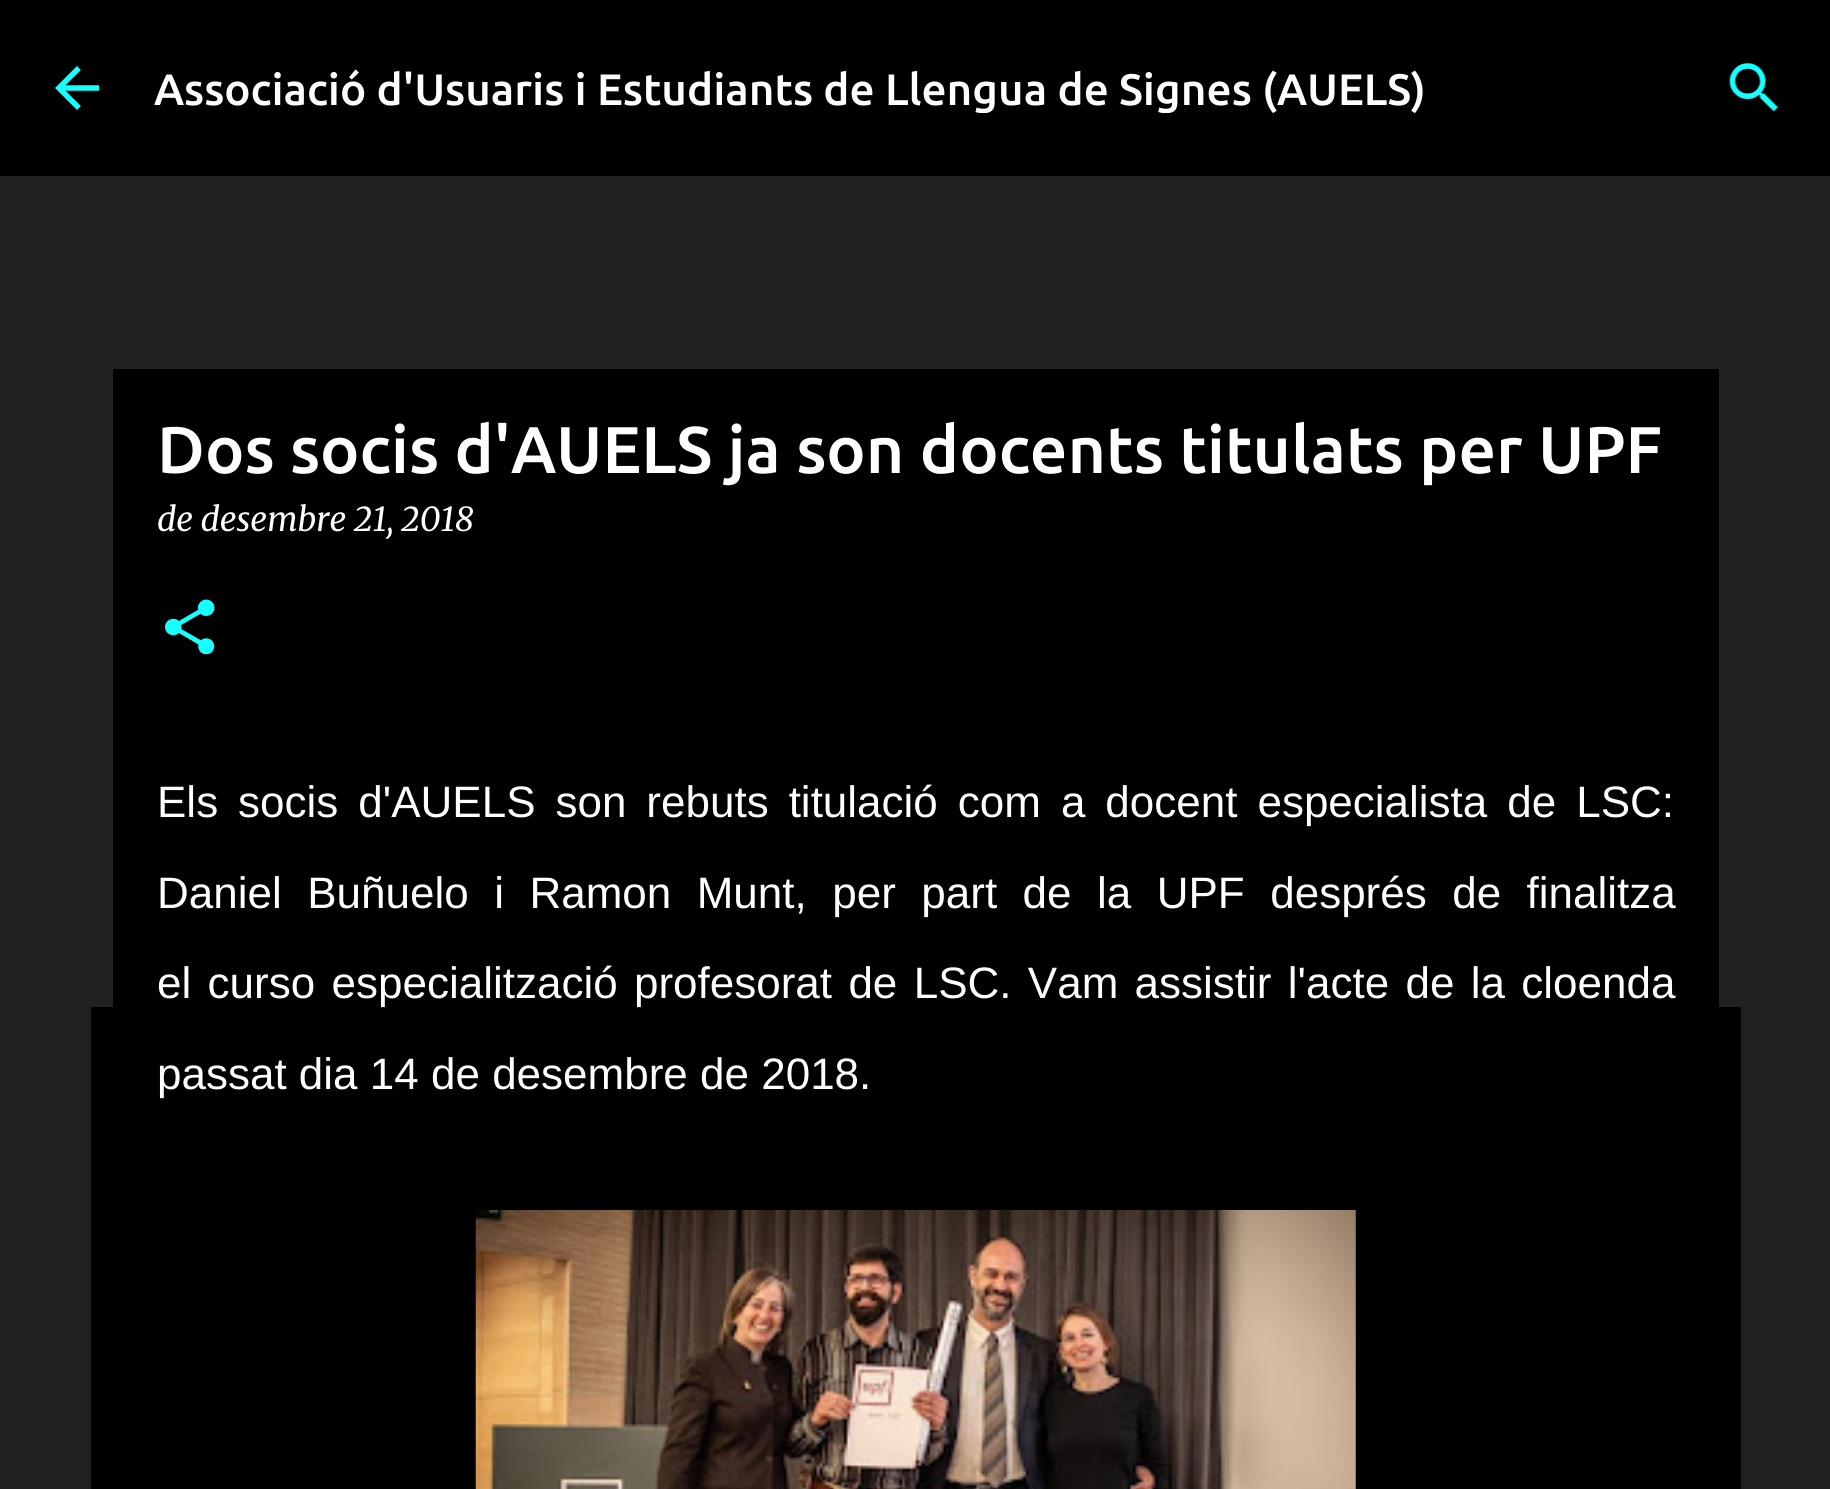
import math
import cairo

surface = cairo.ImageSurface(cairo.FORMAT_RGB24, 1830, 1489)
c = cairo.Context(surface)
options = cairo.FontOptions()
options.set_hint_metrics(cairo.HINT_METRICS_OFF)
options.set_hint_style(cairo.HINT_STYLE_NONE)
c.set_font_options(options)
c.set_miter_limit(4)
def C(code):
 c.set_source_rgb(*(v / 255 for v in bytes.fromhex(code[-6:])))
def F(family, size, italic, bold):
 c.select_font_face(family, cairo.FONT_SLANT_ITALIC if italic else cairo.FONT_SLANT_NORMAL, cairo.FONT_WEIGHT_BOLD if bold else cairo.FONT_WEIGHT_NORMAL)
 c.set_font_size(size)
def T(x, y, s):
 c.move_to(x, y)
 c.show_text(s)
def L(x, y, s, letter, word):
 c.move_to(x, y)
 for ch in s:
  c.show_text(ch)
  c.rel_move_to(letter + word * (ch == ' '), 0)
def R(x, y, w, h):
 c.rectangle(x, y, w, h)
 c.fill()
def I(path, x, y, w, h):
 c.save()
 c.set_source_surface(cairo.ImageSurface.create_from_png(path), x, y)
 c.rectangle(x, y, w, h)
 c.fill()
 c.restore()
C('212121')
c.paint()
C('000000')
R(0,0,1830,176)
I('1.png',55,66,44,44)
c.save()
c.rectangle(154,63,1524,50)
c.clip()
F('Ubuntu Medium',44,0,0)
C('ffffff')
T(154,105,'Associació d\'Usuaris i Estudiants de Llengua de Signes (AUELS)')
c.restore()
I('2.png',1729,63,50,49)
R(91,1007,1650,482)
R(113,369,1606,638)
F('Ubuntu Medium',66,0,0)
C('ffffff')
T(157,473,'Dos socis d\'AUELS ja son docents titulats per UPF')
F('Merriweather',33,1,0)
T(157,531,'de desembre 21, 2018')
I('3.png',165,599,50,56)
F('Liberation Sans',44,0,0)
L(157,817,'Els socis d\'AUELS son rebuts titulació com a docent especialista de LSC:',0,7.75)
L(157,908,'Daniel Buñuelo i Ramon Munt, per part de la UPF després de finalitza',0,13.25)
L(157,998,'el curso especialització profesorat de LSC. Vam assistir l\'acte de la cloenda',0,4.1)
T(157,1089,'passat dia 14 de desembre de 2018.')
I('4.png',475,1210,881,279)
surface.write_to_png('o.png')
